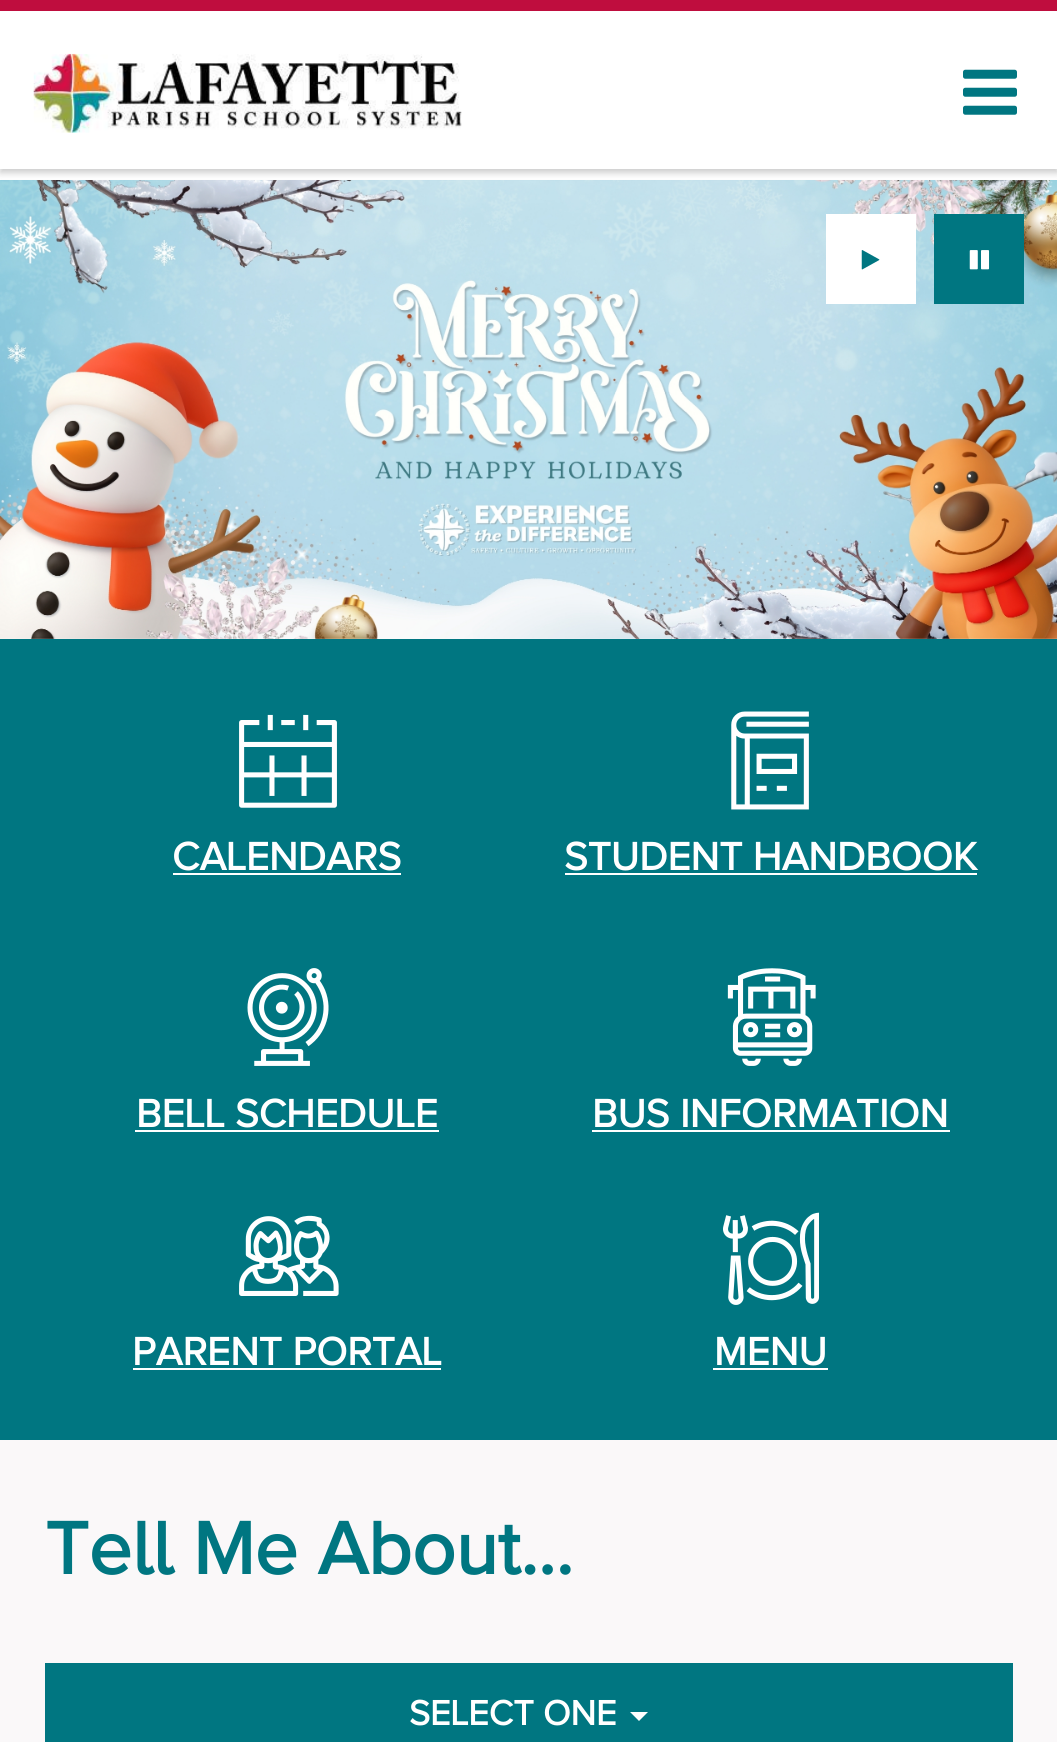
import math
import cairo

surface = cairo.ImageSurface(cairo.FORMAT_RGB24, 1057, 1742)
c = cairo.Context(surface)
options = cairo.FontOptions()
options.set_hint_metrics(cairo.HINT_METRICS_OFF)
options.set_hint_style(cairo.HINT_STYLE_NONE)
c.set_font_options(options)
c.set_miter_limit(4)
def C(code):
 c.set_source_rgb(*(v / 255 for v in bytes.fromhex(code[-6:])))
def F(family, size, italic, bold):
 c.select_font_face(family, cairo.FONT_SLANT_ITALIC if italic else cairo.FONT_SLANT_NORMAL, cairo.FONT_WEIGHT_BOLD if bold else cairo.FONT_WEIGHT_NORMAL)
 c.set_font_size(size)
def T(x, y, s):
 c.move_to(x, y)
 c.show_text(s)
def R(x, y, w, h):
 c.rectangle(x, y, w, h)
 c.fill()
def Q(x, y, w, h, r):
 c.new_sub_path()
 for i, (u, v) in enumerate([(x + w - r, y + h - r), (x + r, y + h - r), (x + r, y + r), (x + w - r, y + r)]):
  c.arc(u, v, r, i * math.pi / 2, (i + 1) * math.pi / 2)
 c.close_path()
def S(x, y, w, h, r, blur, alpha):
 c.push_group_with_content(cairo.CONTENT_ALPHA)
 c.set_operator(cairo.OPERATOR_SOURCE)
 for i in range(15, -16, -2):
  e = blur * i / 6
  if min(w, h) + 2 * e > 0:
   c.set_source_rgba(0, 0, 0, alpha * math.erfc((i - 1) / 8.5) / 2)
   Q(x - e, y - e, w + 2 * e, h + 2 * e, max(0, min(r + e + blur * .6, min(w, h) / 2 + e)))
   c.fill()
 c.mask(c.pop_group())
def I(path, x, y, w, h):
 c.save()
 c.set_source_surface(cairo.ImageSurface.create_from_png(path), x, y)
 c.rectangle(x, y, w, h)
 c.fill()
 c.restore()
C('ffffff')
c.paint()
I('3.png',0,180,1057,459)
C('000000')
S(0,5,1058,168,0,3.5,.2)
C('ffffff')
R(0,11,1057,158)
C('bf0d3e')
R(0,0,1057,11)
I('1.png',33,53,429,80)
I('2.png',963,69,54,46)
C('ffffff')
R(826,214,90,90)
I('4.png',861,250,19,20)
C('007681')
R(934,214,90,90)
I('5.png',969,250,21,20)
R(0,639,1057,801)
I('6.png',239,714,98,94)
F('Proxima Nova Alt',40.5,0,1)
C('ffffff')
T(172,870,'CALENDARS')
R(173,873,228,2)
I('7.png',731,711,78,99)
T(564,870,'STUDENT HANDBOOK')
R(565,873,412,2)
I('8.png',247,968,82,98)
T(136,1127,'BELL SCHEDULE')
R(135,1130,304,2)
I('9.png',727,968,89,98)
T(592,1127,'BUS INFORMATION')
R(592,1130,358,2)
I('10.png',239,1215,100,81)
T(132,1365,'PARENT PORTAL')
R(133,1368,308,2)
I('11.png',723,1212,96,93)
T(714,1365,'MENU')
R(713,1368,115,2)
C('faf8f9')
R(0,1440,1057,302)
F('Proxima Nova Alt',76.5,0,1)
C('007681')
T(45,1574,'Tell Me About...')
R(45,1663,968,79)
F('Proxima Nova Alt',36,0,1)
C('ffffff')
T(409,1725,'SELECT ONE')
c.new_path()
c.move_to(630,1712)
c.line_to(648,1712)
c.line_to(639,1721)
c.close_path()
c.fill()
surface.write_to_png('o.png')
